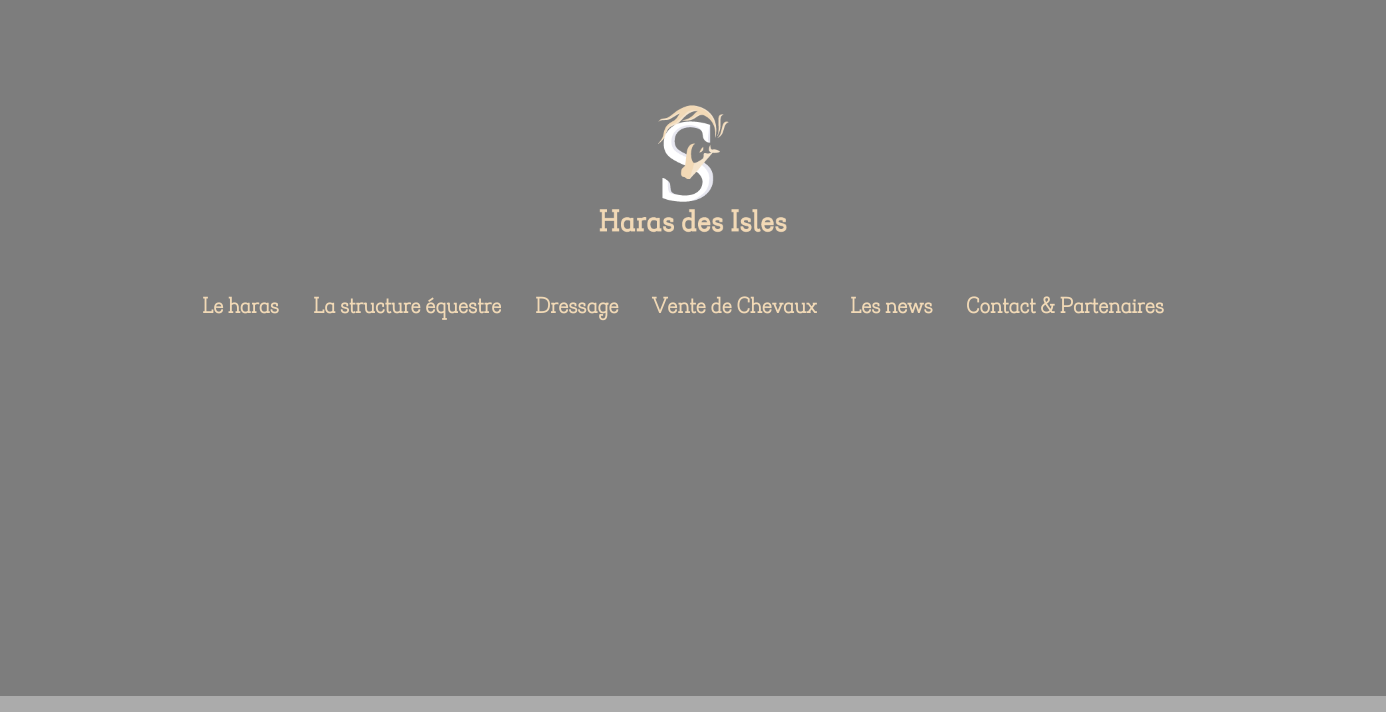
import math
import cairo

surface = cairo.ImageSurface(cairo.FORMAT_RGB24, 1386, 712)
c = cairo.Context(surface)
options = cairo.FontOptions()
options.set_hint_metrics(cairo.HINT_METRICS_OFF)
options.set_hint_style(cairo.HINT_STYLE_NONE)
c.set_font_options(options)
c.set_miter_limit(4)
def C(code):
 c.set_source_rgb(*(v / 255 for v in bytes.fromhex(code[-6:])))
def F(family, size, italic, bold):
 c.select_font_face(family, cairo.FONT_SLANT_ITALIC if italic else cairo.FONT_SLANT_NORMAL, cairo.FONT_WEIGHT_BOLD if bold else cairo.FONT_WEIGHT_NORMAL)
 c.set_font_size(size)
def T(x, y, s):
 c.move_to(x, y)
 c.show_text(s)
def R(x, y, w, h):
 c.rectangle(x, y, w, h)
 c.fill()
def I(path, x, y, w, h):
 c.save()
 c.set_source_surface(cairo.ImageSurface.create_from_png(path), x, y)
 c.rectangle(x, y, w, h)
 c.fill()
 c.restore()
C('7d7d7d')
c.paint()
I('1.png',599,105,188,128)
F('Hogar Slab',24,0,1)
C('f1d9b6')
T(202,313,'Le haras')
T(313,313,'La structure équestre')
T(535,313,'Dressage')
T(652,313,'Vente de Chevaux')
T(850,313,'Les news')
T(966,313,'Contact & Partenaires')
C('ababab')
R(0,696,1386,16)
surface.write_to_png('o.png')
